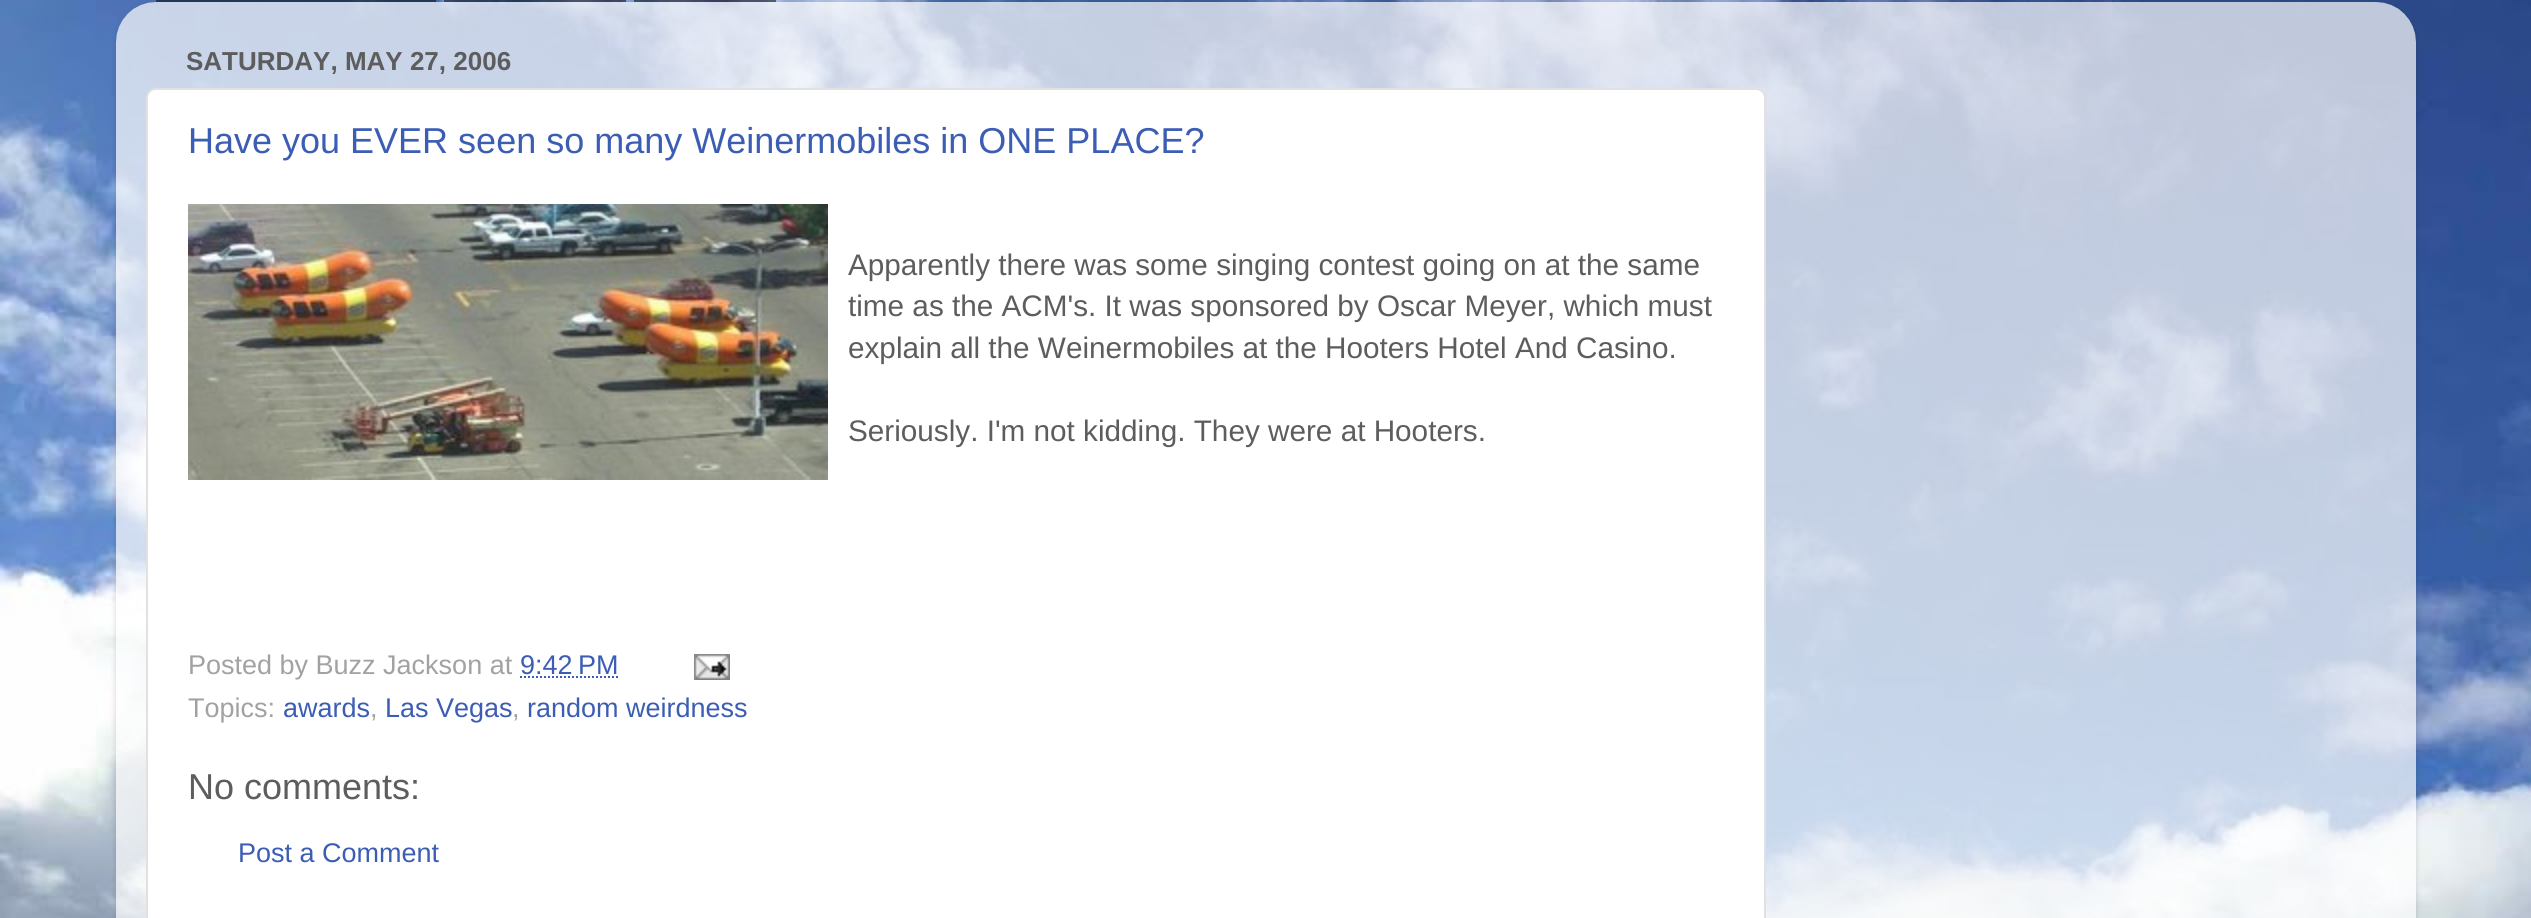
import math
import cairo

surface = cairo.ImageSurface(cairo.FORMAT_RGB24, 2531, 918)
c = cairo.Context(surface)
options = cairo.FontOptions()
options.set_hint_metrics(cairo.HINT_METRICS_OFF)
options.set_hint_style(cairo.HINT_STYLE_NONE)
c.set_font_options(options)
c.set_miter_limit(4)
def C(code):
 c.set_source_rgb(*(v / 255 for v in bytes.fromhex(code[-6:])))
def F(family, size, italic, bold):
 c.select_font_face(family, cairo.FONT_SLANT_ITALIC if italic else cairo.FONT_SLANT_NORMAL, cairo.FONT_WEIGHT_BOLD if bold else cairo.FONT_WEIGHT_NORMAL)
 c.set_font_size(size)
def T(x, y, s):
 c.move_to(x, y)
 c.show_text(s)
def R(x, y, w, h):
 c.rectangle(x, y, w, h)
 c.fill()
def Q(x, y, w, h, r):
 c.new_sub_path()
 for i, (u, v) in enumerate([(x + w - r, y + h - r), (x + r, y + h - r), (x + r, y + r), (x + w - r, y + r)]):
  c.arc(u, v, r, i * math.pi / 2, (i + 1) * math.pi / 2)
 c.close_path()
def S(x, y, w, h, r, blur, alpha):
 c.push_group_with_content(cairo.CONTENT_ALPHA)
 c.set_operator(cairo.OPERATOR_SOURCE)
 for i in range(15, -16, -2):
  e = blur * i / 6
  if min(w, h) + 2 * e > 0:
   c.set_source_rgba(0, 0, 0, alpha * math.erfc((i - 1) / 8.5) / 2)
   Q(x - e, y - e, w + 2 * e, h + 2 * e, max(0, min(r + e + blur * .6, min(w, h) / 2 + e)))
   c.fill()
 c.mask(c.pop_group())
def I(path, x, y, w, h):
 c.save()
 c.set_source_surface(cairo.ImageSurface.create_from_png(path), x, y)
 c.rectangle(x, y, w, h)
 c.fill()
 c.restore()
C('ffffff')
c.paint()
I('1.png',0,0,2531,918)
c.set_source_rgba(0,0,0,0.5)
R(156,0,280,2)
R(444,0,182,2)
R(634,0,142,2)
c.save()
c.set_fill_rule(cairo.FILL_RULE_EVEN_ODD)
c.new_path()
c.move_to(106,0)
c.line_to(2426,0)
c.line_to(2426,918)
c.line_to(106,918)
c.close_path()
c.move_to(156,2)
c.line_to(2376,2)
c.curve_to(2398,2,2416,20,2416,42)
c.line_to(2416,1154)
c.line_to(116,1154)
c.line_to(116,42)
c.curve_to(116,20,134,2,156,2)
c.close_path()
c.clip()
C('000000')
S(116,4,2300,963,40,3,.15)
c.restore()
I('2.png',116,2,2300,916)
F('Liberation Sans',26,0,1)
C('5d5d5d')
T(186,70,'SATURDAY, MAY 27, 2006')
C('ffffff')
Q(147,89,1618,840,9)
c.fill_preserve()
C('e1e1e1')
c.stroke()
F('Liberation Sans',36,0,0)
C('3c5db4')
T(188,153,'Have you EVER seen so many Weinermobiles in ONE PLACE?')
I('3.png',188,204,640,276)
F('Liberation Sans',29.7,0,0)
C('5d5d5d')
T(848,275,'Apparently there was some singing contest going on at the same')
T(848,316,'time as the ACM\'s. It was sponsored by Oscar Meyer, which must')
T(848,358,'explain all the Weinermobiles at the Hooters Hotel And Casino.')
T(848,441,'Seriously. I\'m not kidding. They were at Hooters.')
F('Liberation Sans',27,0,0)
C('a2a2a2')
T(188,674,'Posted by Buzz Jackson at')
C('3c5db4')
T(520,674,'9:42 PM')
c.new_path()
c.move_to(520,677)
c.line_to(618,677)
c.set_dash([2,2])
c.stroke()
I('4.png',694,654,36,26)
C('a2a2a2')
T(188,717,'Topics:')
C('3c5db4')
T(283,717,'awards')
C('a2a2a2')
T(370,717,',')
C('3c5db4')
T(385,717,'Las Vegas')
C('a2a2a2')
T(512,717,',')
C('3c5db4')
T(527,717,'random weirdness')
F('Liberation Sans',36,0,0)
C('5d5d5d')
T(188,799,'No comments:')
F('Liberation Sans',27,0,0)
C('3c5db4')
T(238,862,'Post a Comment')
surface.write_to_png('o.png')
